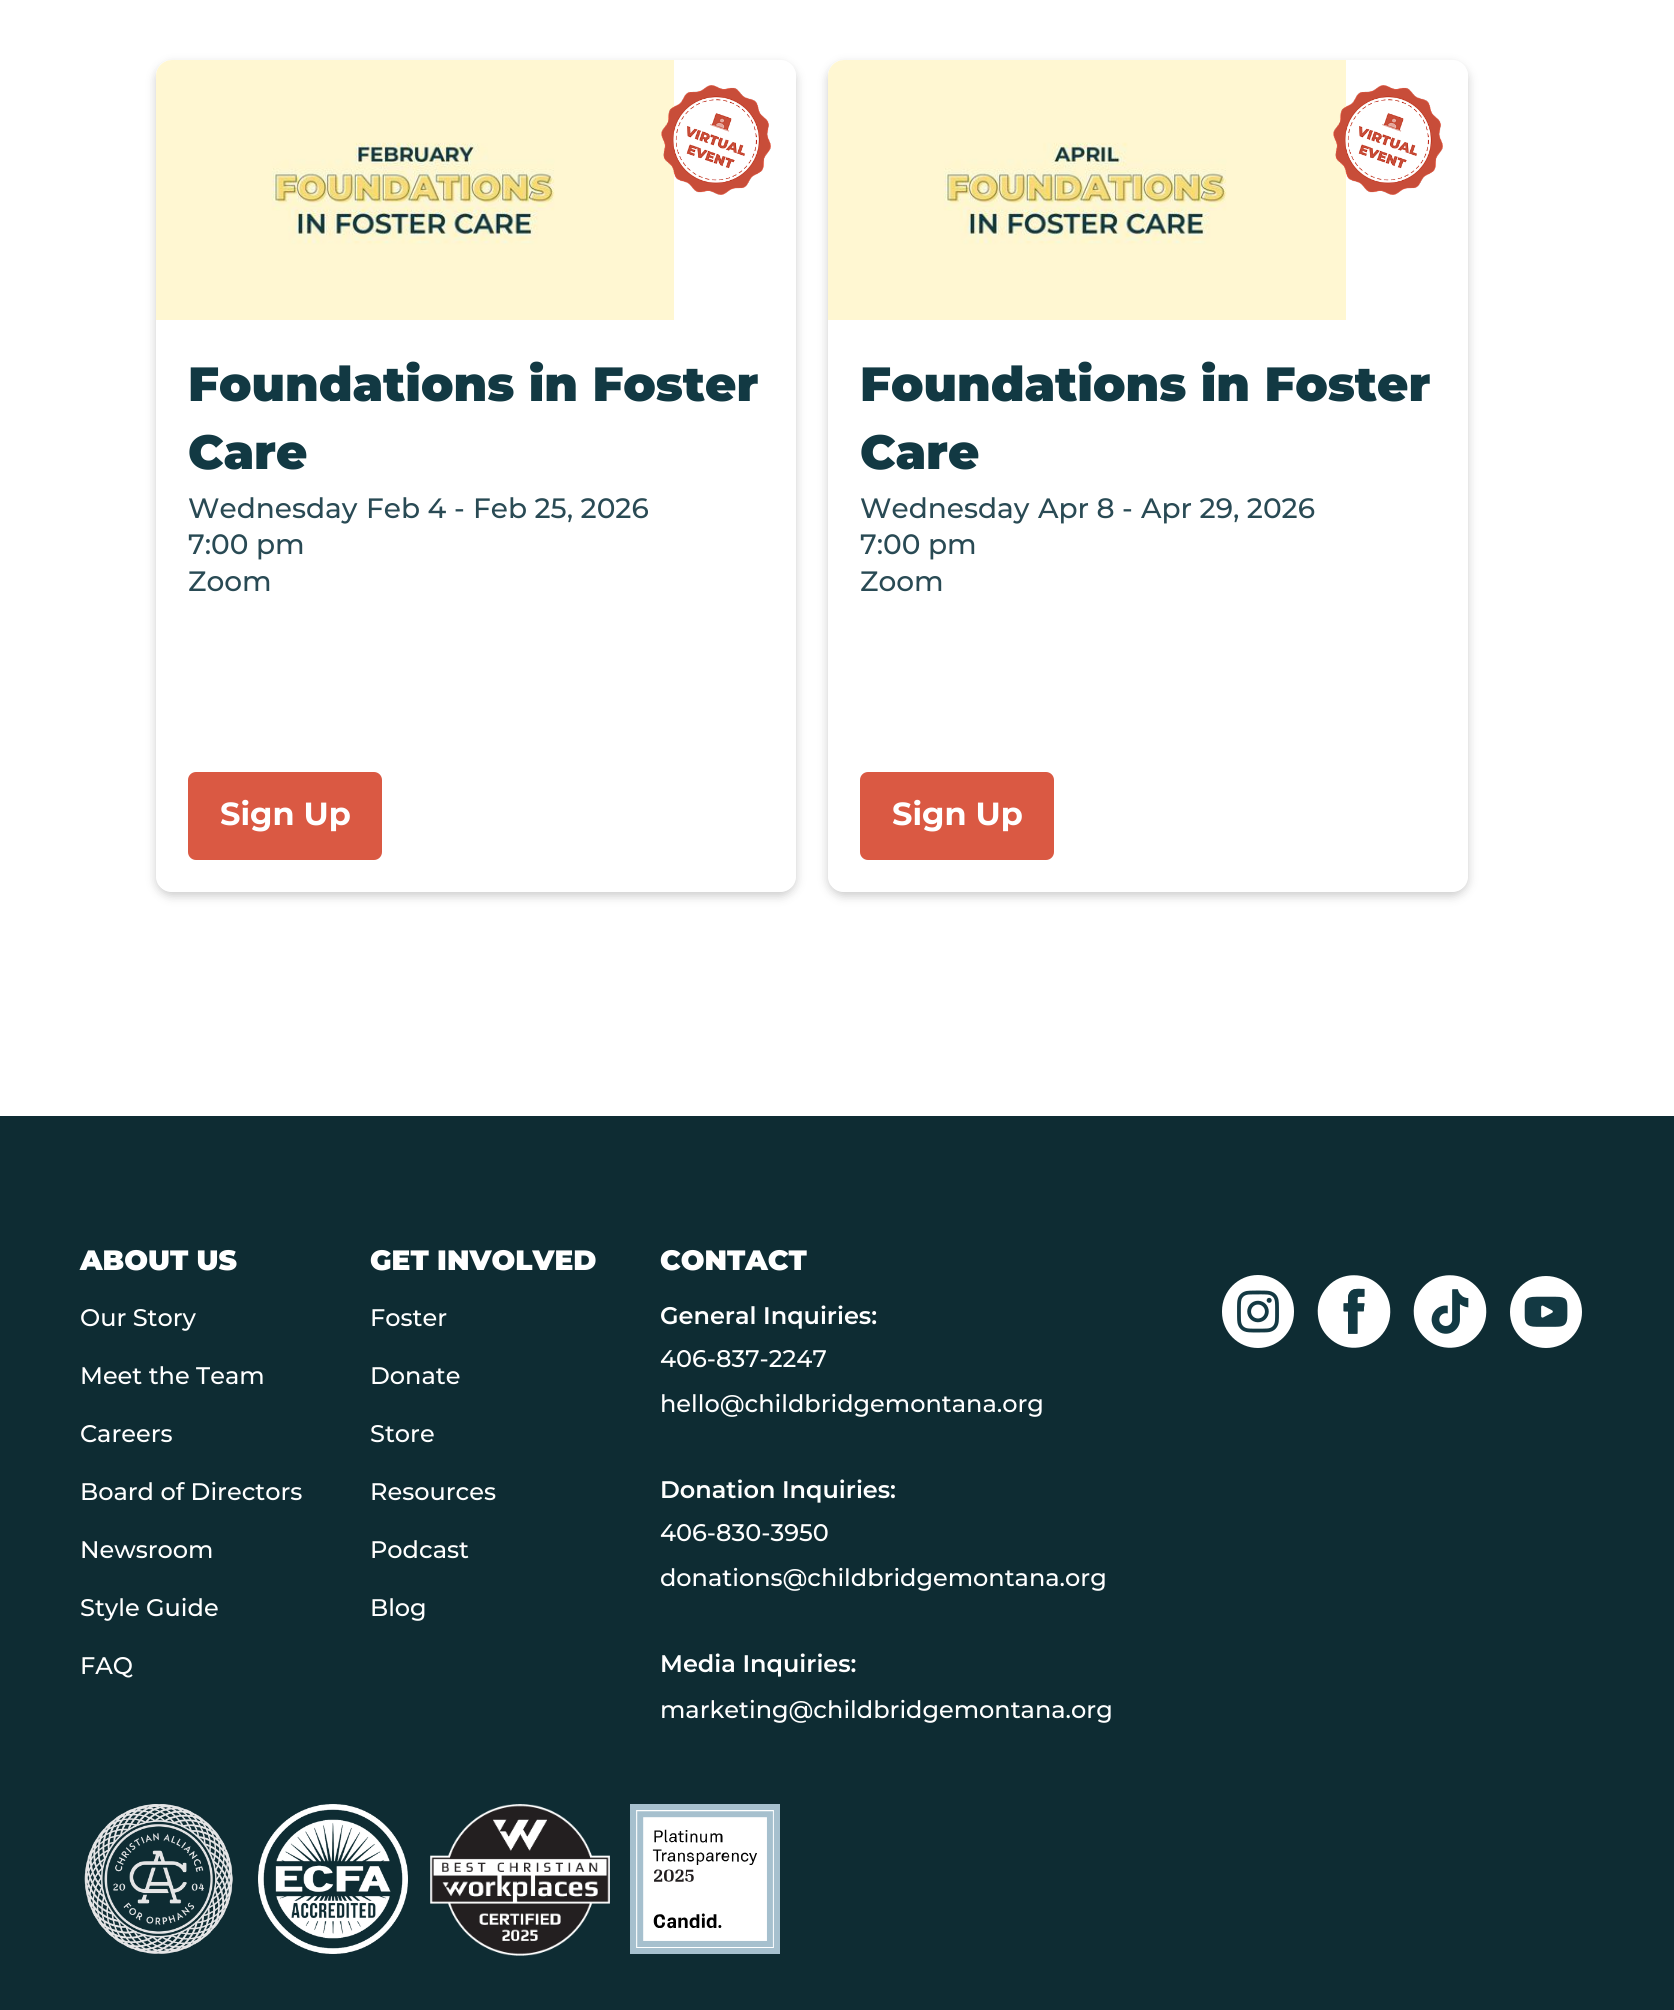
import math
import cairo

surface = cairo.ImageSurface(cairo.FORMAT_RGB24, 1674, 2010)
c = cairo.Context(surface)
options = cairo.FontOptions()
options.set_hint_metrics(cairo.HINT_METRICS_OFF)
options.set_hint_style(cairo.HINT_STYLE_NONE)
c.set_font_options(options)
c.set_miter_limit(4)
def C(code):
 c.set_source_rgb(*(v / 255 for v in bytes.fromhex(code[-6:])))
def F(family, size, italic, bold):
 c.select_font_face(family, cairo.FONT_SLANT_ITALIC if italic else cairo.FONT_SLANT_NORMAL, cairo.FONT_WEIGHT_BOLD if bold else cairo.FONT_WEIGHT_NORMAL)
 c.set_font_size(size)
def T(x, y, s):
 c.move_to(x, y)
 c.show_text(s)
def R(x, y, w, h):
 c.rectangle(x, y, w, h)
 c.fill()
def Q(x, y, w, h, r):
 c.new_sub_path()
 for i, (u, v) in enumerate([(x + w - r, y + h - r), (x + r, y + h - r), (x + r, y + r), (x + w - r, y + r)]):
  c.arc(u, v, r, i * math.pi / 2, (i + 1) * math.pi / 2)
 c.close_path()
def S(x, y, w, h, r, blur, alpha):
 c.push_group_with_content(cairo.CONTENT_ALPHA)
 c.set_operator(cairo.OPERATOR_SOURCE)
 for i in range(15, -16, -2):
  e = blur * i / 6
  if min(w, h) + 2 * e > 0:
   c.set_source_rgba(0, 0, 0, alpha * math.erfc((i - 1) / 8.5) / 2)
   Q(x - e, y - e, w + 2 * e, h + 2 * e, max(0, min(r + e + blur * .6, min(w, h) / 2 + e)))
   c.fill()
 c.mask(c.pop_group())
def I(path, x, y, w, h):
 c.save()
 c.set_source_surface(cairo.ImageSurface.create_from_png(path), x, y)
 c.rectangle(x, y, w, h)
 c.fill()
 c.restore()
C('ffffff')
c.paint()
c.save()
c.set_fill_rule(cairo.FILL_RULE_EVEN_ODD)
c.new_path()
c.move_to(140,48)
c.line_to(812,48)
c.line_to(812,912)
c.line_to(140,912)
c.close_path()
c.move_to(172,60)
c.line_to(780,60)
c.curve_to(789,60,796,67,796,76)
c.line_to(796,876)
c.curve_to(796,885,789,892,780,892)
c.line_to(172,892)
c.curve_to(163,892,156,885,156,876)
c.line_to(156,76)
c.curve_to(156,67,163,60,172,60)
c.close_path()
c.clip()
C('000000')
S(156,64,640,832,16,5,.2)
c.restore()
I('2.png',156,60,518,260)
I('1.png',661,85,110,110)
F('Montserrat Black',48,0,0)
C('123943')
T(188,401,'Foundations in Foster')
T(188,469,'Care')
F('Montserrat Medium',28,0,0)
C('294a54')
T(188,518,'Wednesday')
T(366,518,'Feb 4')
T(454,518,'-')
T(473,518,'Feb 25, 2026')
T(188,554,'7:00 pm')
T(188,591,'Zoom')
C('da5943')
Q(188,772,194,88,8)
c.fill()
F('Montserrat',32,0,1)
C('ffffff')
T(220,825,'Sign Up')
c.save()
c.set_fill_rule(cairo.FILL_RULE_EVEN_ODD)
c.new_path()
c.move_to(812,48)
c.line_to(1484,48)
c.line_to(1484,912)
c.line_to(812,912)
c.close_path()
c.move_to(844,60)
c.line_to(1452,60)
c.curve_to(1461,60,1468,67,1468,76)
c.line_to(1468,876)
c.curve_to(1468,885,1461,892,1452,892)
c.line_to(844,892)
c.curve_to(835,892,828,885,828,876)
c.line_to(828,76)
c.curve_to(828,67,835,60,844,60)
c.close_path()
c.clip()
C('000000')
S(828,64,640,832,16,5,.2)
c.restore()
I('3.png',828,60,518,260)
I('1.png',1333,85,110,110)
F('Montserrat Black',48,0,0)
C('123943')
T(860,401,'Foundations in Foster')
T(860,469,'Care')
F('Montserrat Medium',28,0,0)
C('294a54')
T(860,518,'Wednesday')
T(1038,518,'Apr 8')
T(1122,518,'-')
T(1141,518,'Apr 29, 2026')
T(860,554,'7:00 pm')
T(860,591,'Zoom')
C('da5943')
Q(860,772,194,88,8)
c.fill()
F('Montserrat',32,0,1)
C('ffffff')
T(892,825,'Sign Up')
C('0e2c33')
R(0,1116,1674,894)
F('Montserrat Black',28,0,0)
C('ffffff')
T(80,1270,'ABOUT US')
F('Montserrat Medium',24,0,0)
T(80,1326,'Our Story')
T(80,1384,'Meet the Team')
T(80,1442,'Careers')
T(80,1500,'Board of Directors')
T(80,1558,'Newsroom')
T(80,1616,'Style Guide')
T(80,1674,'FAQ')
F('Montserrat Black',28,0,0)
T(370,1270,'GET INVOLVED')
F('Montserrat Medium',24,0,0)
T(370,1326,'Foster')
T(370,1384,'Donate')
T(370,1442,'Store')
T(370,1500,'Resources')
T(370,1558,'Podcast')
T(370,1616,'Blog')
F('Montserrat Black',28,0,0)
T(660,1270,'CONTACT')
F('Montserrat SemiBold',24,0,0)
T(660,1324,'General Inquiries:')
F('Montserrat Medium',24,0,0)
T(660,1367,'406-837-2247')
T(660,1412,'hello@childbridgemontana.org')
F('Montserrat SemiBold',24,0,0)
T(660,1498,'Donation Inquiries:')
F('Montserrat Medium',24,0,0)
T(660,1541,'406-830-3950')
T(660,1586,'donations@childbridgemontana.org')
F('Montserrat SemiBold',24,0,0)
T(660,1672,'Media Inquiries:')
F('Montserrat Medium',24,0,0)
T(660,1718,'marketing@childbridgemontana.org')
I('4.png',1222,1275,72,73)
I('5.png',1317,1275,74,73)
I('6.png',1413,1275,74,73)
I('7.png',1510,1276,72,72)
I('8.png',84,1804,149,150)
I('9.png',258,1804,150,150)
I('10.png',430,1804,180,152)
I('11.png',630,1804,150,150)
surface.write_to_png('o.png')
